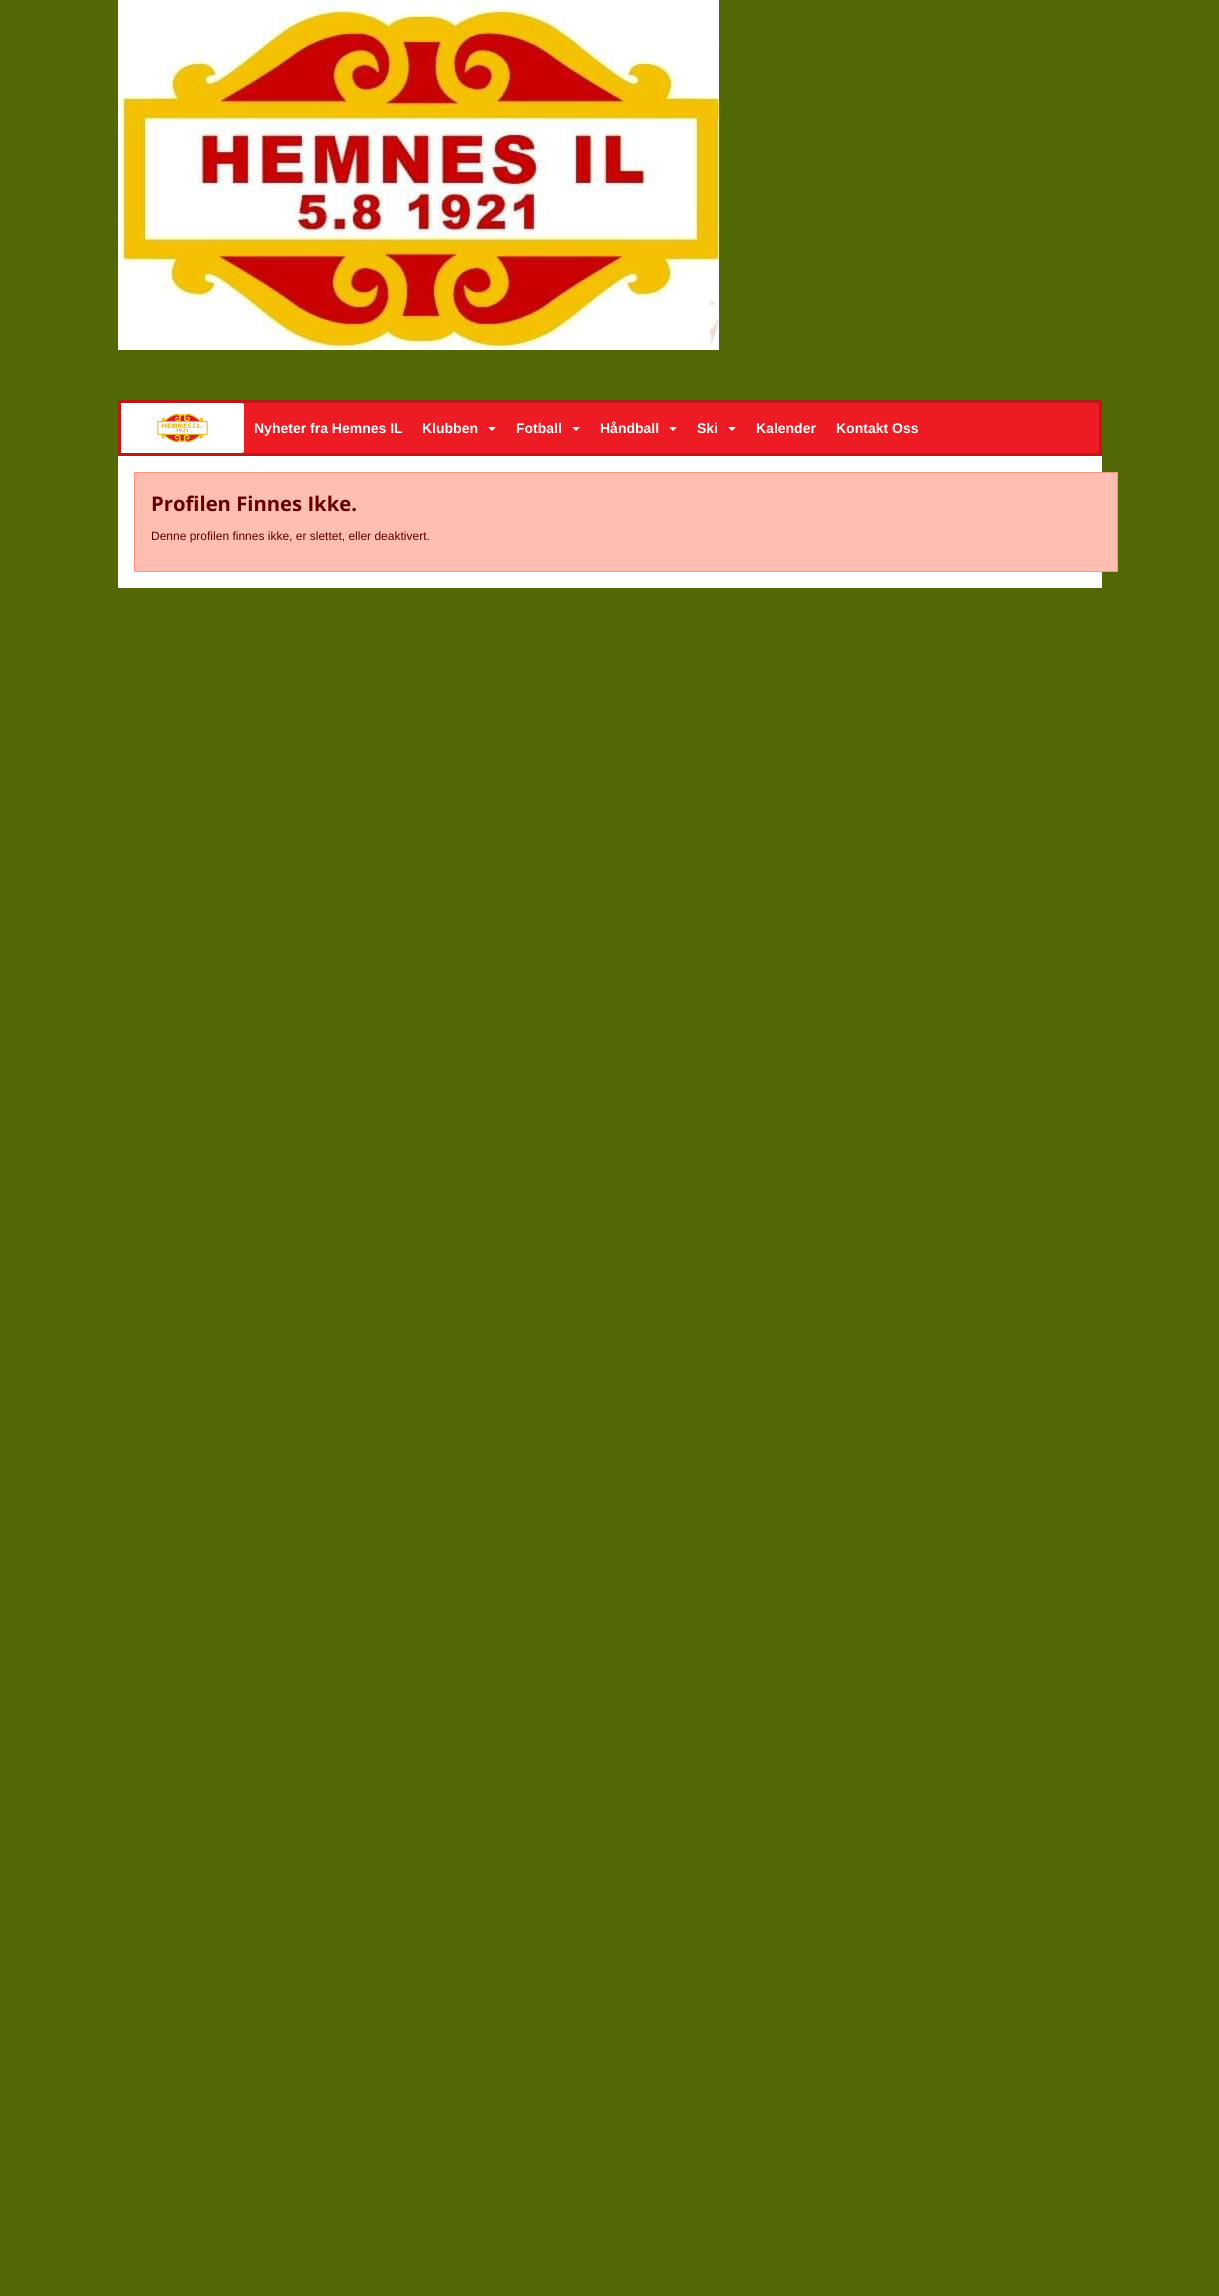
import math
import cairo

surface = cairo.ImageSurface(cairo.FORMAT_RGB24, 1219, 2296)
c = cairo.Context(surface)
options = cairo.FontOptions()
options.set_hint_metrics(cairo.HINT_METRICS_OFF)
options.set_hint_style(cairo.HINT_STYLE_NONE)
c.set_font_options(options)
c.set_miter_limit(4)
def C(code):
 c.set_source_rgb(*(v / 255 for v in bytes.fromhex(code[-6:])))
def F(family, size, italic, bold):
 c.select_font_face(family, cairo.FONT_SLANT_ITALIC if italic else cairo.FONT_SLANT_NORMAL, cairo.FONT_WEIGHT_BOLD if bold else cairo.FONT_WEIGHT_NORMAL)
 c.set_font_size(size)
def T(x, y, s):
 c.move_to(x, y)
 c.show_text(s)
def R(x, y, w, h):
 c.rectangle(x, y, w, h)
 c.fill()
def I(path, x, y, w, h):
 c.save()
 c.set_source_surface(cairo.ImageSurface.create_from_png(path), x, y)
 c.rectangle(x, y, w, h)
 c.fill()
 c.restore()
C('526806')
c.paint()
I('1.png',118,0,601,350)
C('ed1c24')
c.new_path()
c.move_to(121,401.5)
c.line_to(1099,401.5)
c.curve_to(1100,401.5,1100.5,402,1100.5,403)
c.line_to(1100.5,454.5)
c.line_to(119.5,454.5)
c.line_to(119.5,403)
c.curve_to(119.5,402,120,401.5,121,401.5)
c.close_path()
c.fill_preserve()
C('ba1919')
c.set_line_width(3)
c.stroke()
I('2.png',121,403,123,50)
F('Liberation Sans',14,0,1)
C('ffffff')
T(254,433,'Nyheter fra Hemnes IL')
T(422,433,'Klubben')
c.new_path()
c.move_to(488,427)
c.line_to(496,427)
c.line_to(492,431)
c.close_path()
c.fill()
T(516,433,'Fotball')
c.new_path()
c.move_to(572,427)
c.line_to(580,427)
c.line_to(576,431)
c.close_path()
c.fill()
T(600,433,'Håndball')
c.new_path()
c.move_to(669,427)
c.line_to(677,427)
c.line_to(673,431)
c.close_path()
c.fill()
T(697,433,'Ski')
c.new_path()
c.move_to(728,427)
c.line_to(736,427)
c.line_to(732,431)
c.close_path()
c.fill()
T(756,433,'Kalender')
T(836,433,'Kontakt Oss')
R(118,456,984,132)
C('ffbeb2')
c.rectangle(134.5,472.5,983,99)
c.fill_preserve()
C('ff947e')
c.set_line_width(1)
c.stroke()
F('Open Sans',20.25,0,1)
C('660000')
T(151,511,'Profilen Finnes Ikke.')
F('Liberation Sans',12,0,0)
T(151,540,'Denne profilen finnes ikke, er slettet, eller deaktivert.')
surface.write_to_png('o.png')
